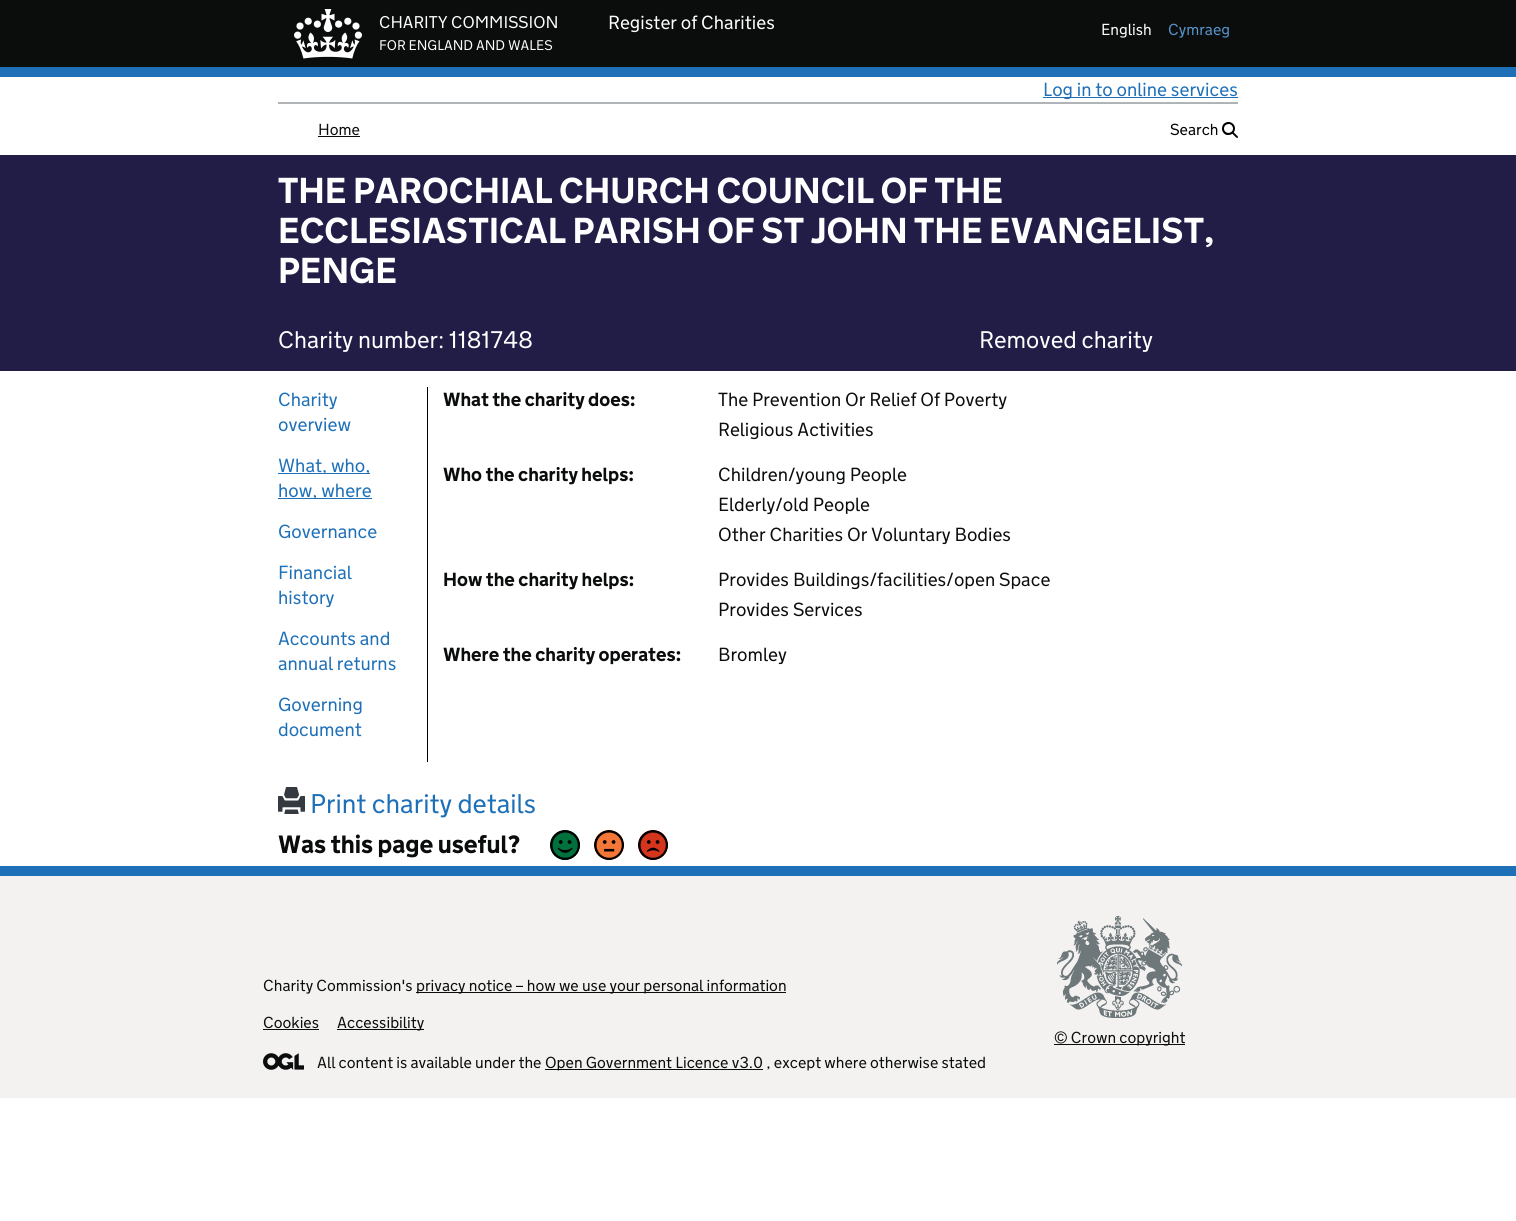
import math
import cairo

surface = cairo.ImageSurface(cairo.FORMAT_RGB24, 1516, 1221)
c = cairo.Context(surface)
options = cairo.FontOptions()
options.set_hint_metrics(cairo.HINT_METRICS_OFF)
options.set_hint_style(cairo.HINT_STYLE_NONE)
c.set_font_options(options)
c.set_miter_limit(4)
def C(code):
 c.set_source_rgb(*(v / 255 for v in bytes.fromhex(code[-6:])))
def F(family, size, italic, bold):
 c.select_font_face(family, cairo.FONT_SLANT_ITALIC if italic else cairo.FONT_SLANT_NORMAL, cairo.FONT_WEIGHT_BOLD if bold else cairo.FONT_WEIGHT_NORMAL)
 c.set_font_size(size)
def T(x, y, s):
 c.move_to(x, y)
 c.show_text(s)
def R(x, y, w, h):
 c.rectangle(x, y, w, h)
 c.fill()
def I(path, x, y, w, h):
 c.save()
 c.set_source_surface(cairo.ImageSurface.create_from_png(path), x, y)
 c.rectangle(x, y, w, h)
 c.fill()
 c.restore()
C('ffffff')
c.paint()
C('0b0c0c')
R(0,0,1516,67)
C('1d70b8')
R(0,67,1516,10)
I('1.png',294,9,68,50)
F('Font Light',17,0,0)
C('ffffff')
T(379,28,'CHARITY COMMISSION')
F('Font Light',14,0,0)
T(379,50,'FOR ENGLAND AND WALES')
F('Font Light',19,0,0)
T(608,29,'Register of Charities')
F('Font Light',16,0,0)
T(1101,35,'English')
C('5694ca')
T(1168,35,'Cymraeg')
C('b1b4b6')
R(278,102,960,2)
C('1d70b8')
R(1043,97,195,1)
F('Font Light',19,0,0)
T(1043,96,'Log in to online services')
F('Font Light',16,0,0)
C('0b0c0c')
T(318,135,'Home')
R(318,136,42,1)
C('000000')
T(1170,135,'Search')
I('2.png',1222,122,16,16)
C('211d47')
R(0,155,1516,216)
F('Font',36,0,1)
C('ffffff')
T(278,203,'THE PAROCHIAL CHURCH COUNCIL OF THE')
T(278,243,'ECCLESIASTICAL PARISH OF ST JOHN THE EVANGELIST,')
T(278,283,'PENGE')
F('Font Light',24,0,0)
T(278,348,'Charity number: 1181748')
T(979,348,'Removed charity')
C('000000')
R(427,387,1,375)
F('Font Light',19,0,0)
C('1d70b8')
T(278,406,'Charity')
T(278,431,'overview')
R(278,473,92,1)
T(278,472,'What, who,')
R(278,498,94,1)
T(278,497,'how, where')
T(278,538,'Governance')
T(278,579,'Financial')
T(278,604,'history')
T(278,645,'Accounts and')
T(278,670,'annual returns')
T(278,711,'Governing')
T(278,736,'document')
F('Font',19,0,1)
C('0b0c0c')
T(443,406,'What the charity does:')
F('Font Light',19,0,0)
T(718,406,'The Prevention Or Relief Of Poverty')
T(718,436,'Religious Activities')
F('Font',19,0,1)
T(443,481,'Who the charity helps:')
F('Font Light',19,0,0)
T(718,481,'Children/young People')
T(718,511,'Elderly/old People')
T(718,541,'Other Charities Or Voluntary Bodies')
F('Font',19,0,1)
T(443,586,'How the charity helps:')
F('Font Light',19,0,0)
T(718,586,'Provides Buildings/facilities/open Space')
T(718,616,'Provides Services')
F('Font',19,0,1)
T(443,661,'Where the charity operates:')
F('Font Light',19,0,0)
T(718,661,'Bromley')
I('3.png',278,787,27,27)
F('Font Light',27,0,0)
C('1d70b8')
T(310,813,'Print charity details')
F('Font',25,0,1)
C('0b0c0c')
T(278,853,'Was this page useful?')
C('00703c')
c.new_path()
c.arc(565,845,15,0,2 * math.pi)
c.fill()
I('4.png',550,830,30,30)
C('f47738')
c.arc(609,845,15,0,2 * math.pi)
c.fill()
I('5.png',594,830,30,30)
C('d4351c')
c.arc(653,845,15,0,2 * math.pi)
c.fill()
I('6.png',638,830,30,30)
C('f3f2f1')
R(0,876,1516,222)
C('1d70b8')
R(0,866,1516,10)
F('Font Light',16,0,0)
C('0b0c0c')
T(263,991,'Charity Commission\'s')
R(416,992,370,1)
T(416,991,'privacy notice – how we use your personal information')
T(263,1028,'Cookies')
R(263,1029,56,1)
R(337,1029,87,1)
T(337,1028,'Accessibility')
I('7.png',263,1053,41,17)
T(317,1068,'All content is available under the')
R(545,1069,218,1)
T(545,1068,'Open Government Licence v3.0 , except where otherwise stated')
I('8.png',1057,916,125,102)
R(1054,1044,131,1)
T(1054,1043,'© Crown copyright')
surface.write_to_png('o.png')
